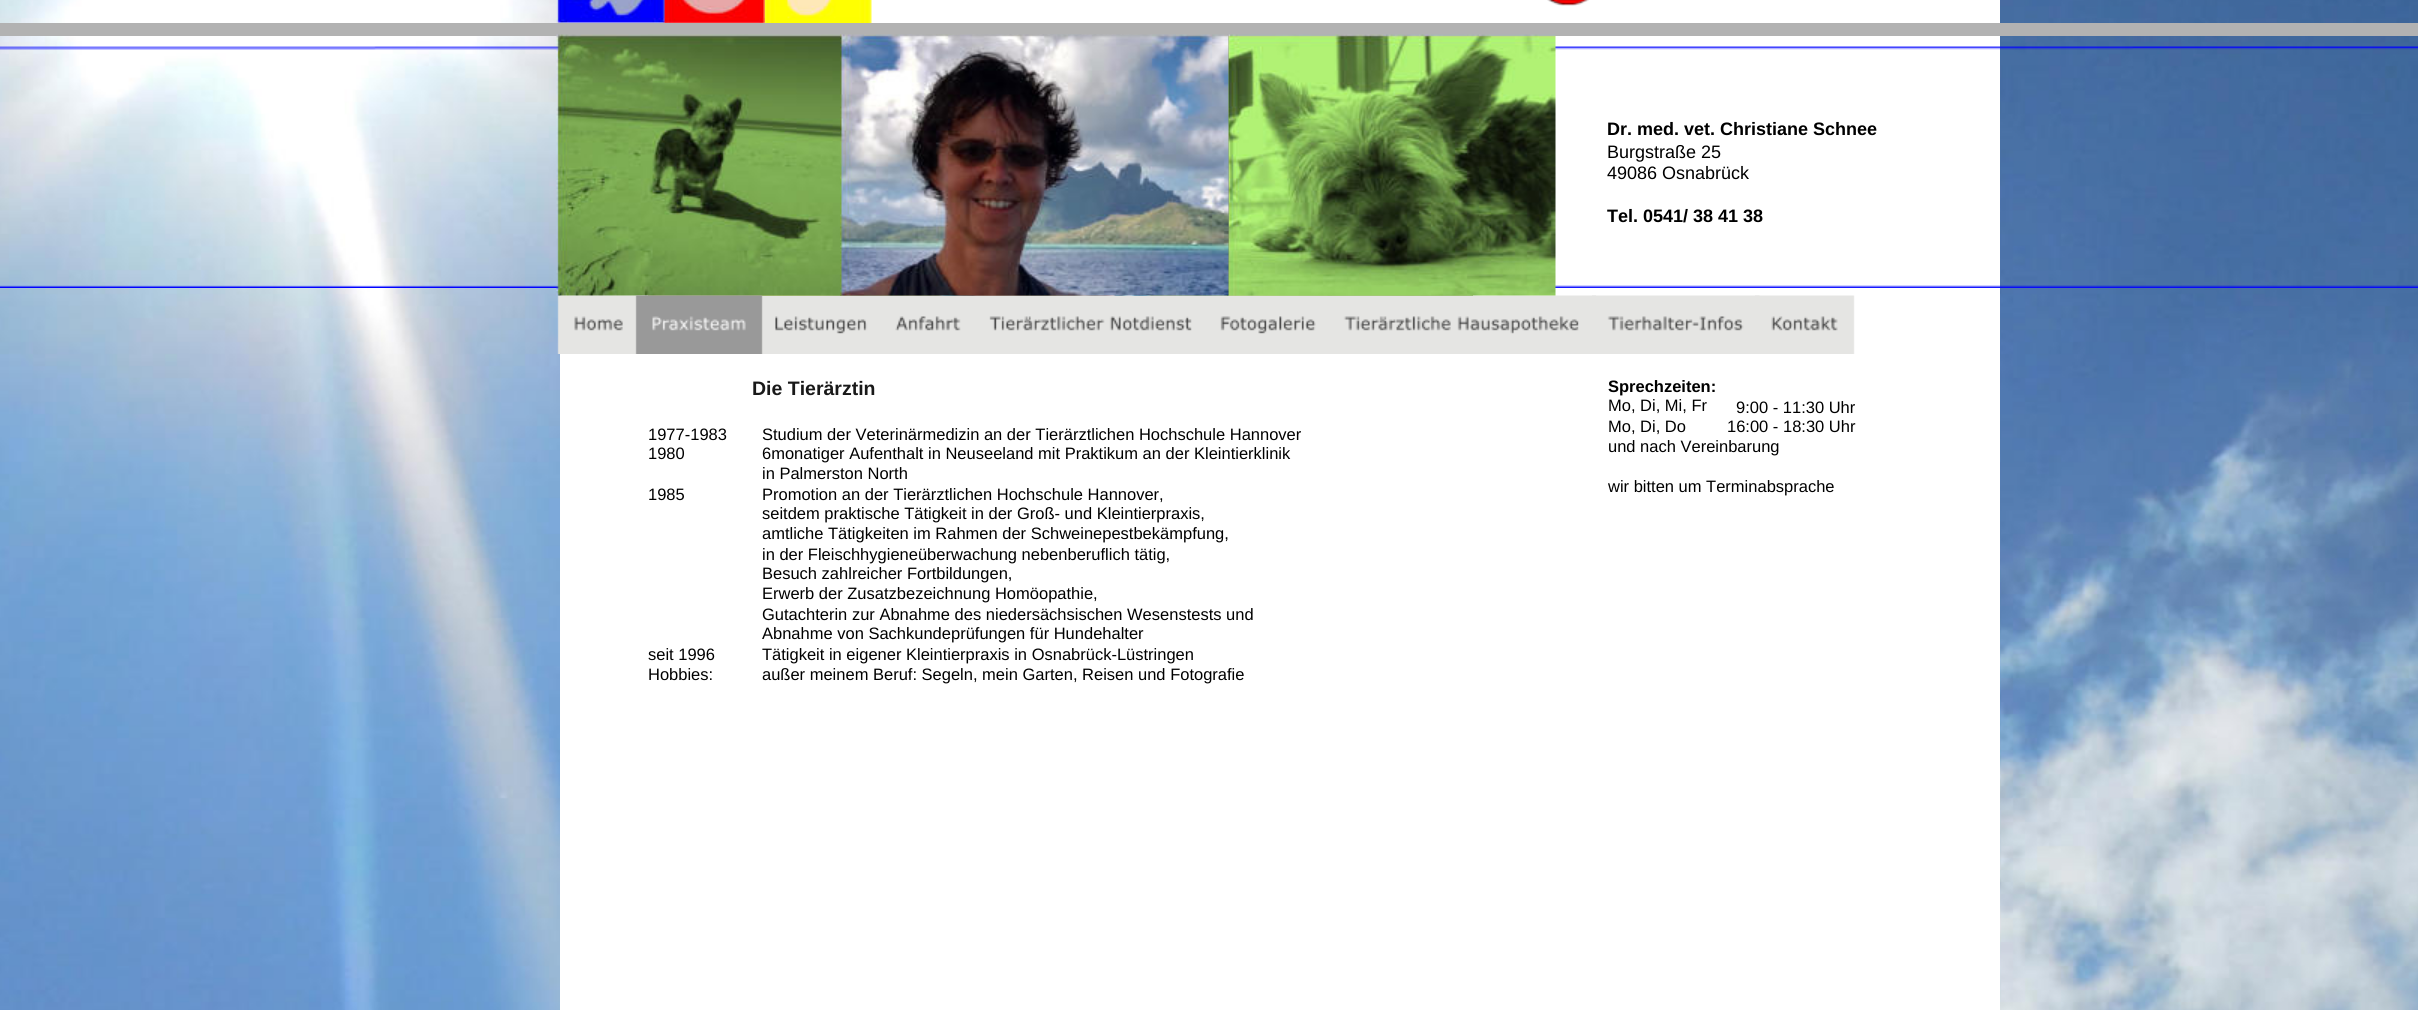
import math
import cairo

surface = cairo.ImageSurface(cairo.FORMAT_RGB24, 2418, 1010)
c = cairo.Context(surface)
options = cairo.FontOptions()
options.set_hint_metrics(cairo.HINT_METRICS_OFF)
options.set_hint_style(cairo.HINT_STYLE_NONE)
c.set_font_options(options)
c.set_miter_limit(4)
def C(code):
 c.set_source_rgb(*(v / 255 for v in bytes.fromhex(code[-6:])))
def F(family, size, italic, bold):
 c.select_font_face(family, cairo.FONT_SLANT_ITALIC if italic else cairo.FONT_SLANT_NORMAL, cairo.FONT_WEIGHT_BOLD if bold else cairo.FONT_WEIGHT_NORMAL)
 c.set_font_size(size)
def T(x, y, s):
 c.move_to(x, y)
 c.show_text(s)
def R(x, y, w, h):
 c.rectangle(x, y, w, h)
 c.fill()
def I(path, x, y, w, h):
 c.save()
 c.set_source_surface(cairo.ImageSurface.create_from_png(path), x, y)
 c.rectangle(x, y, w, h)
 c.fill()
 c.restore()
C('ffffff')
c.paint()
I('1.png',0,0,2418,1010)
C('ffffff')
R(560,0,1440,1010)
I('3.png',664,0,101,23)
I('2.png',556,0,109,23)
I('4.png',765,0,107,23)
I('5.png',1547,0,42,6)
C('b2b2b2')
R(0,23,2418,13)
I('10.png',0,46,2418,4)
I('11.png',0,285,2418,3)
I('12.png',557,295,84,59)
I('14.png',636,295,127,59)
I('15.png',758,295,126,59)
I('16.png',879,295,98,59)
I('17.png',972,295,237,59)
I('18.png',1205,295,127,59)
I('19.png',1328,295,268,59)
I('7.png',648,34,825,262)
I('6.png',556,34,286,262)
I('9.png',1227,34,329,262)
I('8.png',840,34,389,262)
F('Liberation Sans',18,0,1)
C('000000')
T(1607,135,'Dr. med. vet. Christiane Schnee')
F('Liberation Sans',18,0,0)
T(1607,158,'Burgstraße 25')
T(1607,179,'49086 Osnabrück')
F('Liberation Sans',18,0,1)
T(1607,222,'Tel. 0541/ 38 41 38')
I('13.png',635,295,128,59)
I('20.png',1592,295,168,59)
I('21.png',1755,295,100,59)
F('Liberation Sans',19.5,0,1)
C('191919')
T(752,395,'Die Tierärztin')
F('Liberation Sans',16.5,0,0)
C('000000')
T(648,440,'1977-1983')
T(762,440,'Studium der Veterinärmedizin an der Tierärztlichen Hochschule Hannover')
T(648,459,'1980')
T(762,459,'6monatiger Aufenthalt in Neuseeland mit Praktikum an der Kleintierklinik')
T(762,479,'in Palmerston North')
T(648,500,'1985')
T(762,500,'Promotion an der Tierärztlichen Hochschule Hannover,')
T(762,519,'seitdem praktische Tätigkeit in der Groß- und Kleintierpraxis,')
T(762,539,'amtliche Tätigkeiten im Rahmen der Schweinepestbekämpfung,')
T(762,560,'in der Fleischhygieneüberwachung nebenberuflich tätig,')
T(762,579,'Besuch zahlreicher Fortbildungen,')
T(762,599,'Erwerb der Zusatzbezeichnung Homöopathie,')
T(762,620,'Gutachterin zur Abnahme des niedersächsischen Wesenstests und')
T(762,639,'Abnahme von Sachkundeprüfungen für Hundehalter')
T(648,660,'seit 1996')
T(762,660,'Tätigkeit in eigener Kleintierpraxis in Osnabrück-Lüstringen')
T(648,680,'Hobbies:')
T(762,680,'außer meinem Beruf: Segeln, mein Garten, Reisen und Fotografie')
F('Liberation Sans',16.5,0,1)
T(1608,392,'Sprechzeiten:')
F('Liberation Sans',16.5,0,0)
T(1608,411,'Mo, Di, Mi, Fr')
T(1608,432,'Mo, Di, Do')
T(1608,452,'und nach Vereinbarung')
T(1608,492,'wir bitten um Terminabsprache')
T(1736,413,'9:00 - 11:30 Uhr')
T(1727,432,'16:00 - 18:30 Uhr')
surface.write_to_png('o.png')
